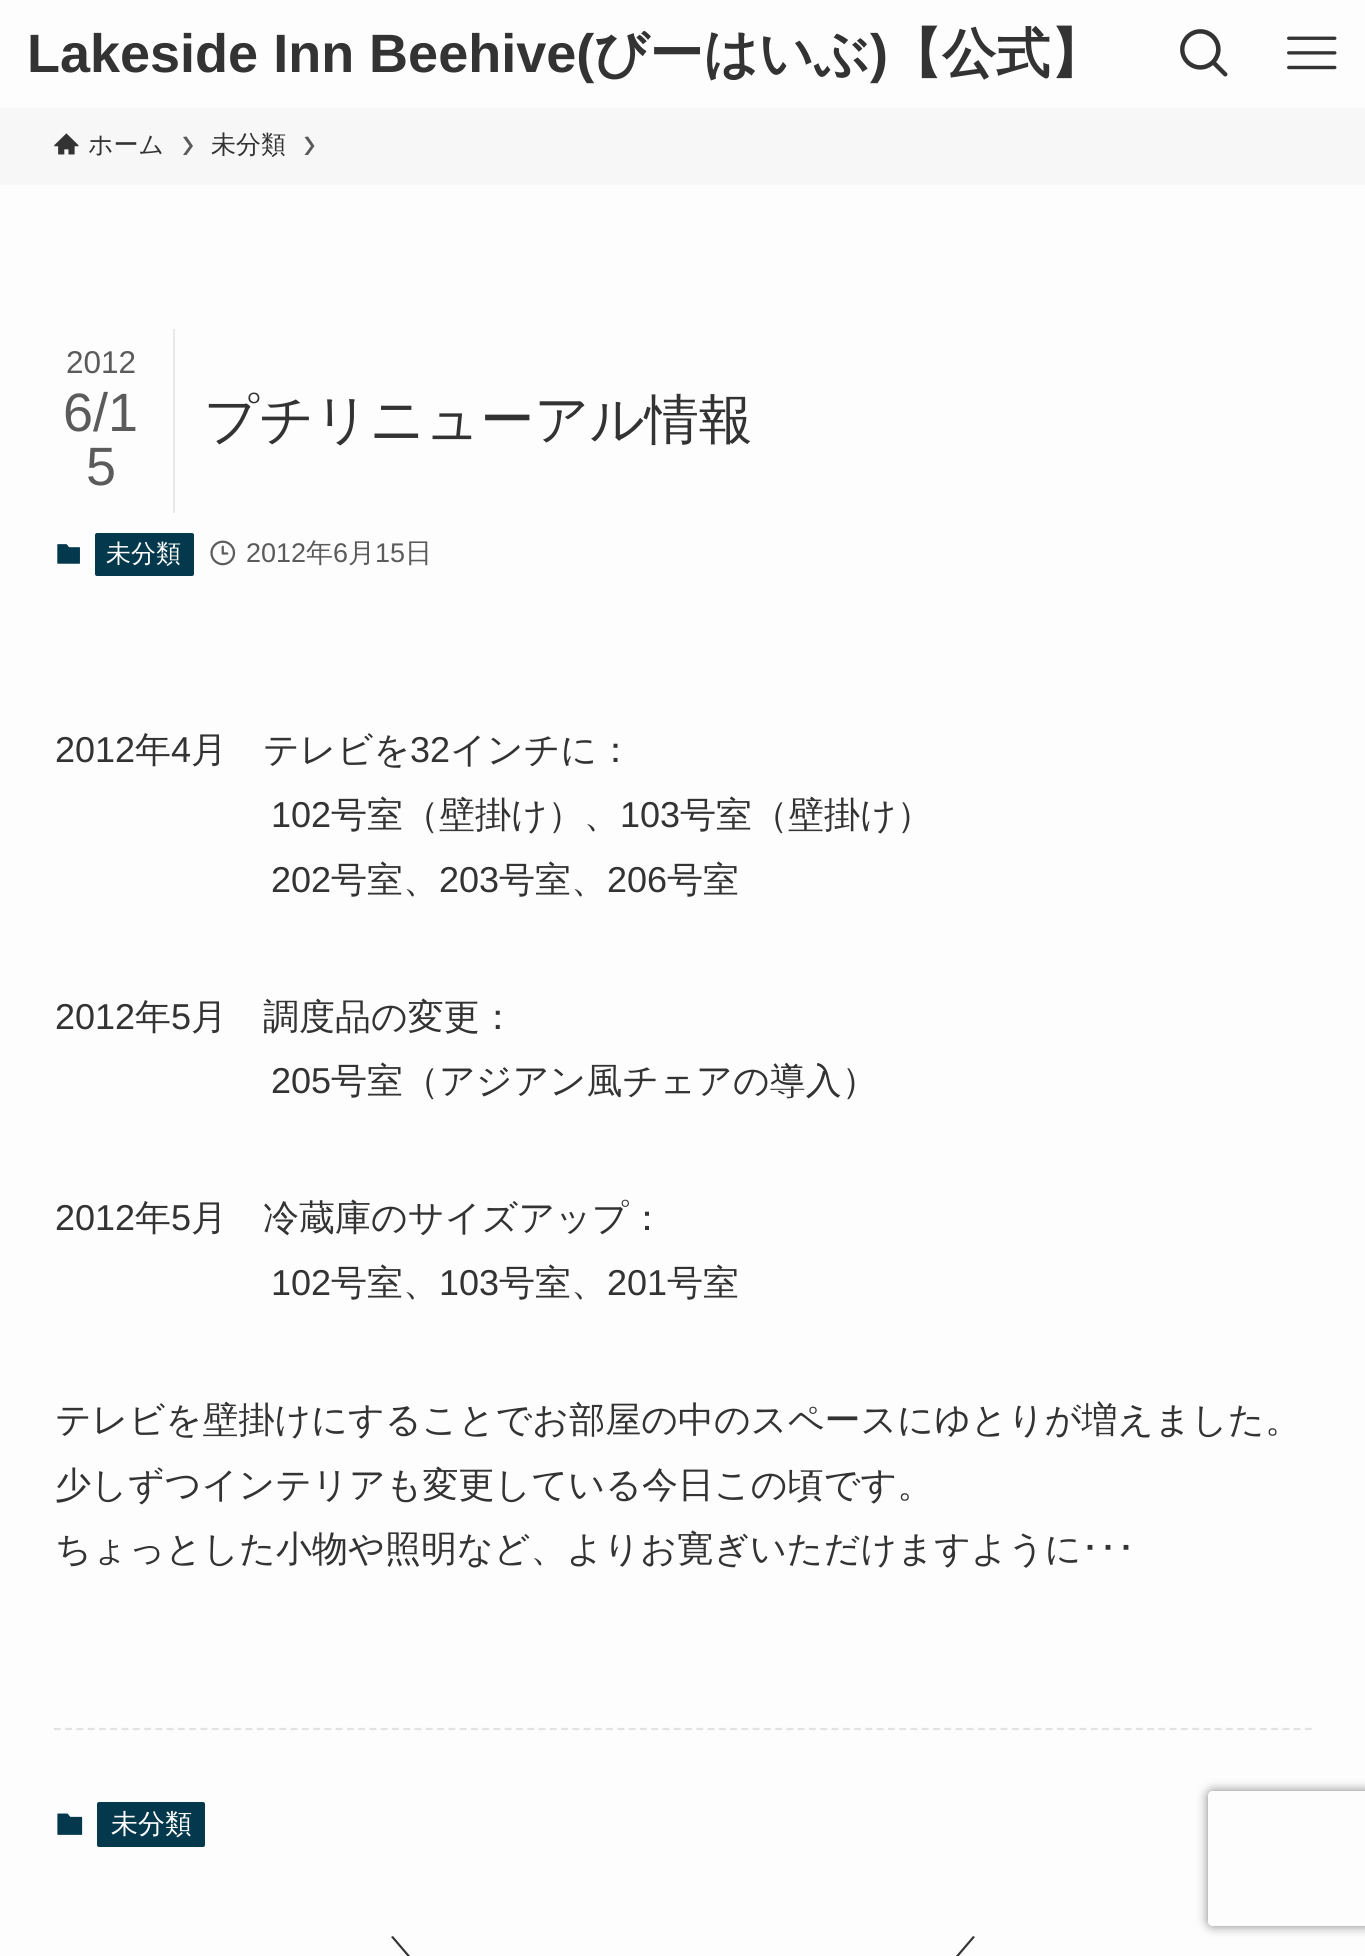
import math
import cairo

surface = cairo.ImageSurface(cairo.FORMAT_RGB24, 1365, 1956)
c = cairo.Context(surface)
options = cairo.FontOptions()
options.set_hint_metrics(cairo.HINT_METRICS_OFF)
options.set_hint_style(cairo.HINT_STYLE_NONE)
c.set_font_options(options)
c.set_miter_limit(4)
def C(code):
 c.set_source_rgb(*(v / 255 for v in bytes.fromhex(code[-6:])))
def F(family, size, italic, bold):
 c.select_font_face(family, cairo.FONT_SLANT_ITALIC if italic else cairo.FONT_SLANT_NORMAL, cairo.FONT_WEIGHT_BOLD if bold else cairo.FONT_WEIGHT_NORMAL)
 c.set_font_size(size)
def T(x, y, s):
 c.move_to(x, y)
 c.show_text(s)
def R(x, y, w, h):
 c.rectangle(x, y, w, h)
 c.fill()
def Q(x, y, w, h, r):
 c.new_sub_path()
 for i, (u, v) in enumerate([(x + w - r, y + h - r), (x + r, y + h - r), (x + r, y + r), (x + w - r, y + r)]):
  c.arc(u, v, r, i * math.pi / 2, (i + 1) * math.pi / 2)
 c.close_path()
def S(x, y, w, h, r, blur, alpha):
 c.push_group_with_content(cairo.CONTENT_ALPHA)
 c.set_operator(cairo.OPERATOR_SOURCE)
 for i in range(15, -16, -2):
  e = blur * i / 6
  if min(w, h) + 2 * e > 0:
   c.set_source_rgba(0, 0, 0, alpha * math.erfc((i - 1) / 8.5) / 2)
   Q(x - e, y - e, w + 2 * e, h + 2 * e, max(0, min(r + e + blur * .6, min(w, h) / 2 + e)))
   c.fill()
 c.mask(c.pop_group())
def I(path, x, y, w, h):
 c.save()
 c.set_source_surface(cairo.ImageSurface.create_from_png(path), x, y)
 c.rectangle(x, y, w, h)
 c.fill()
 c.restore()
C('fdfdfd')
c.paint()
F('Liberation Sans',54,0,1)
C('333333')
T(27,72,'Lakeside Inn Beehive(')
F('WenQuanYi Zen Hei',54,0,1)
T(594,72,'びーはいぶ')
F('Liberation Sans',54,0,1)
T(870,72,')')
F('WenQuanYi Zen Hei',54,0,1)
T(888,72,'【公式】')
I('1.png',1180,29,48,48)
I('2.png',1287,36,50,34)
C('f7f7f7')
R(0,108,1365,77)
I('3.png',54,133,25,22)
F('WenQuanYi Zen Hei Medium',25,0,0)
C('333333')
T(88,153,'ホーム')
C('5a5a5a')
c.new_path()
c.move_to(186.5,136.5)
c.line_to(183,137)
c.line_to(189.5,146)
c.line_to(183,155)
c.line_to(186.5,155)
c.line_to(193,146)
c.close_path()
c.fill()
C('333333')
T(211,153,'未分類')
C('5a5a5a')
c.new_path()
c.move_to(308,136.5)
c.line_to(304.5,137)
c.line_to(311,146)
c.line_to(304.5,155)
c.line_to(308,155)
c.line_to(314.5,146)
c.close_path()
c.fill()
C('e8e8e8')
R(173,329,2,184)
F('Liberation Sans',31.5,0,0)
C('5b5b5b')
T(66,373,'2012')
F('Liberation Sans',54,0,0)
T(63,431,'6/1')
T(86,485,'5')
F('WenQuanYi Zen Hei Medium',54,0,0)
C('333333')
T(204,438,'プチリニューアル情報')
I('4.png',57,544,23,20)
C('04384c')
Q(95,533,99,43,2)
c.fill()
F('WenQuanYi Zen Hei Medium',25,0,0)
C('ffffff')
T(106,562,'未分類')
I('5.png',210,540,26,26)
F('Liberation Sans',27,0,0)
C('5b5b5b')
T(246,562,'2012')
F('WenQuanYi Zen Hei Medium',27,0,0)
T(306,562,'年')
F('Liberation Sans',27,0,0)
T(333,562,'6')
F('WenQuanYi Zen Hei Medium',27,0,0)
T(348,562,'月')
F('Liberation Sans',27,0,0)
T(375,562,'15')
F('WenQuanYi Zen Hei Medium',27,0,0)
T(405,562,'日')
F('Liberation Sans',36,0,0)
C('333333')
T(55,762,'2012')
F('WenQuanYi Zen Hei Medium',36,0,0)
T(135,762,'年')
F('Liberation Sans',36,0,0)
T(171,762,'4')
F('WenQuanYi Zen Hei Medium',36,0,0)
T(191,762,'月　テレビを')
F('Liberation Sans',36,0,0)
T(410,762,'32')
F('WenQuanYi Zen Hei Medium',36,0,0)
T(450,762,'インチに：')
F('Liberation Sans',36,0,0)
T(271,827,'102')
F('WenQuanYi Zen Hei Medium',36,0,0)
T(331,827,'号室（壁掛け）、')
F('Liberation Sans',36,0,0)
T(620,827,'103')
F('WenQuanYi Zen Hei Medium',36,0,0)
T(680,827,'号室（壁掛け）')
F('Liberation Sans',36,0,0)
T(271,892,'202')
F('WenQuanYi Zen Hei Medium',36,0,0)
T(331,892,'号室、')
F('Liberation Sans',36,0,0)
T(439,892,'203')
F('WenQuanYi Zen Hei Medium',36,0,0)
T(499,892,'号室、')
F('Liberation Sans',36,0,0)
T(607,892,'206')
F('WenQuanYi Zen Hei Medium',36,0,0)
T(667,892,'号室')
F('Liberation Sans',36,0,0)
T(55,1029,'2012')
F('WenQuanYi Zen Hei Medium',36,0,0)
T(135,1029,'年')
F('Liberation Sans',36,0,0)
T(171,1029,'5')
F('WenQuanYi Zen Hei Medium',36,0,0)
T(191,1029,'月　調度品の変更：')
F('Liberation Sans',36,0,0)
T(271,1093,'205')
F('WenQuanYi Zen Hei Medium',36,0,0)
T(331,1093,'号室（アジアン風チェアの導入）')
F('Liberation Sans',36,0,0)
T(55,1230,'2012')
F('WenQuanYi Zen Hei Medium',36,0,0)
T(135,1230,'年')
F('Liberation Sans',36,0,0)
T(171,1230,'5')
F('WenQuanYi Zen Hei Medium',36,0,0)
T(191,1230,'月　冷蔵庫のサイズアップ：')
F('Liberation Sans',36,0,0)
T(271,1295,'102')
F('WenQuanYi Zen Hei Medium',36,0,0)
T(331,1295,'号室、')
F('Liberation Sans',36,0,0)
T(439,1295,'103')
F('WenQuanYi Zen Hei Medium',36,0,0)
T(499,1295,'号室、')
F('Liberation Sans',36,0,0)
T(607,1295,'201')
F('WenQuanYi Zen Hei Medium',36,0,0)
T(667,1295,'号室')
T(55,1432,'テレビを壁掛けにすることでお部屋の中のスペースにゆとりが増えました。')
T(55,1497,'少しずつインテリアも変更している今日この頃です。')
T(55,1561,'ちょっとした小物や照明など、よりお寛ぎいただけますように')
F('IPAPGothic',36,0,0)
T(1081,1561,'･･･')
c.new_path()
c.move_to(54,1729)
c.line_to(1312,1729)
C('e2e2e2')
c.set_line_width(2.2)
c.set_dash([6.75,4.52])
c.stroke()
I('6.png',57,1813,26,22)
C('04384c')
Q(97,1802,108,45,2)
c.fill()
F('WenQuanYi Zen Hei Medium',27,0,0)
C('ffffff')
T(111,1833,'未分類')
C('333333')
c.new_path()
c.move_to(391,1937)
c.line_to(393,1936)
c.line_to(428,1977)
c.line_to(426,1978)
c.close_path()
c.fill()
c.new_path()
c.move_to(973,1936)
c.line_to(975,1937)
c.line_to(940,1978)
c.line_to(938,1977)
c.close_path()
c.fill()
c.save()
c.set_fill_rule(cairo.FILL_RULE_EVEN_ODD)
c.new_path()
c.move_to(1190,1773)
c.line_to(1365,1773)
c.line_to(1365,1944)
c.line_to(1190,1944)
c.close_path()
c.move_to(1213,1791)
c.line_to(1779,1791)
c.curve_to(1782,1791,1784,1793,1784,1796)
c.line_to(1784,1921)
c.curve_to(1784,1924,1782,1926,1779,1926)
c.line_to(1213,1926)
c.curve_to(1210,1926,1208,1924,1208,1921)
c.line_to(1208,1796)
c.curve_to(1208,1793,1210,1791,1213,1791)
c.close_path()
c.clip()
C('808080')
S(1208,1791,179,135,5,5.5,1)
c.restore()
surface.write_to_png('o.png')
